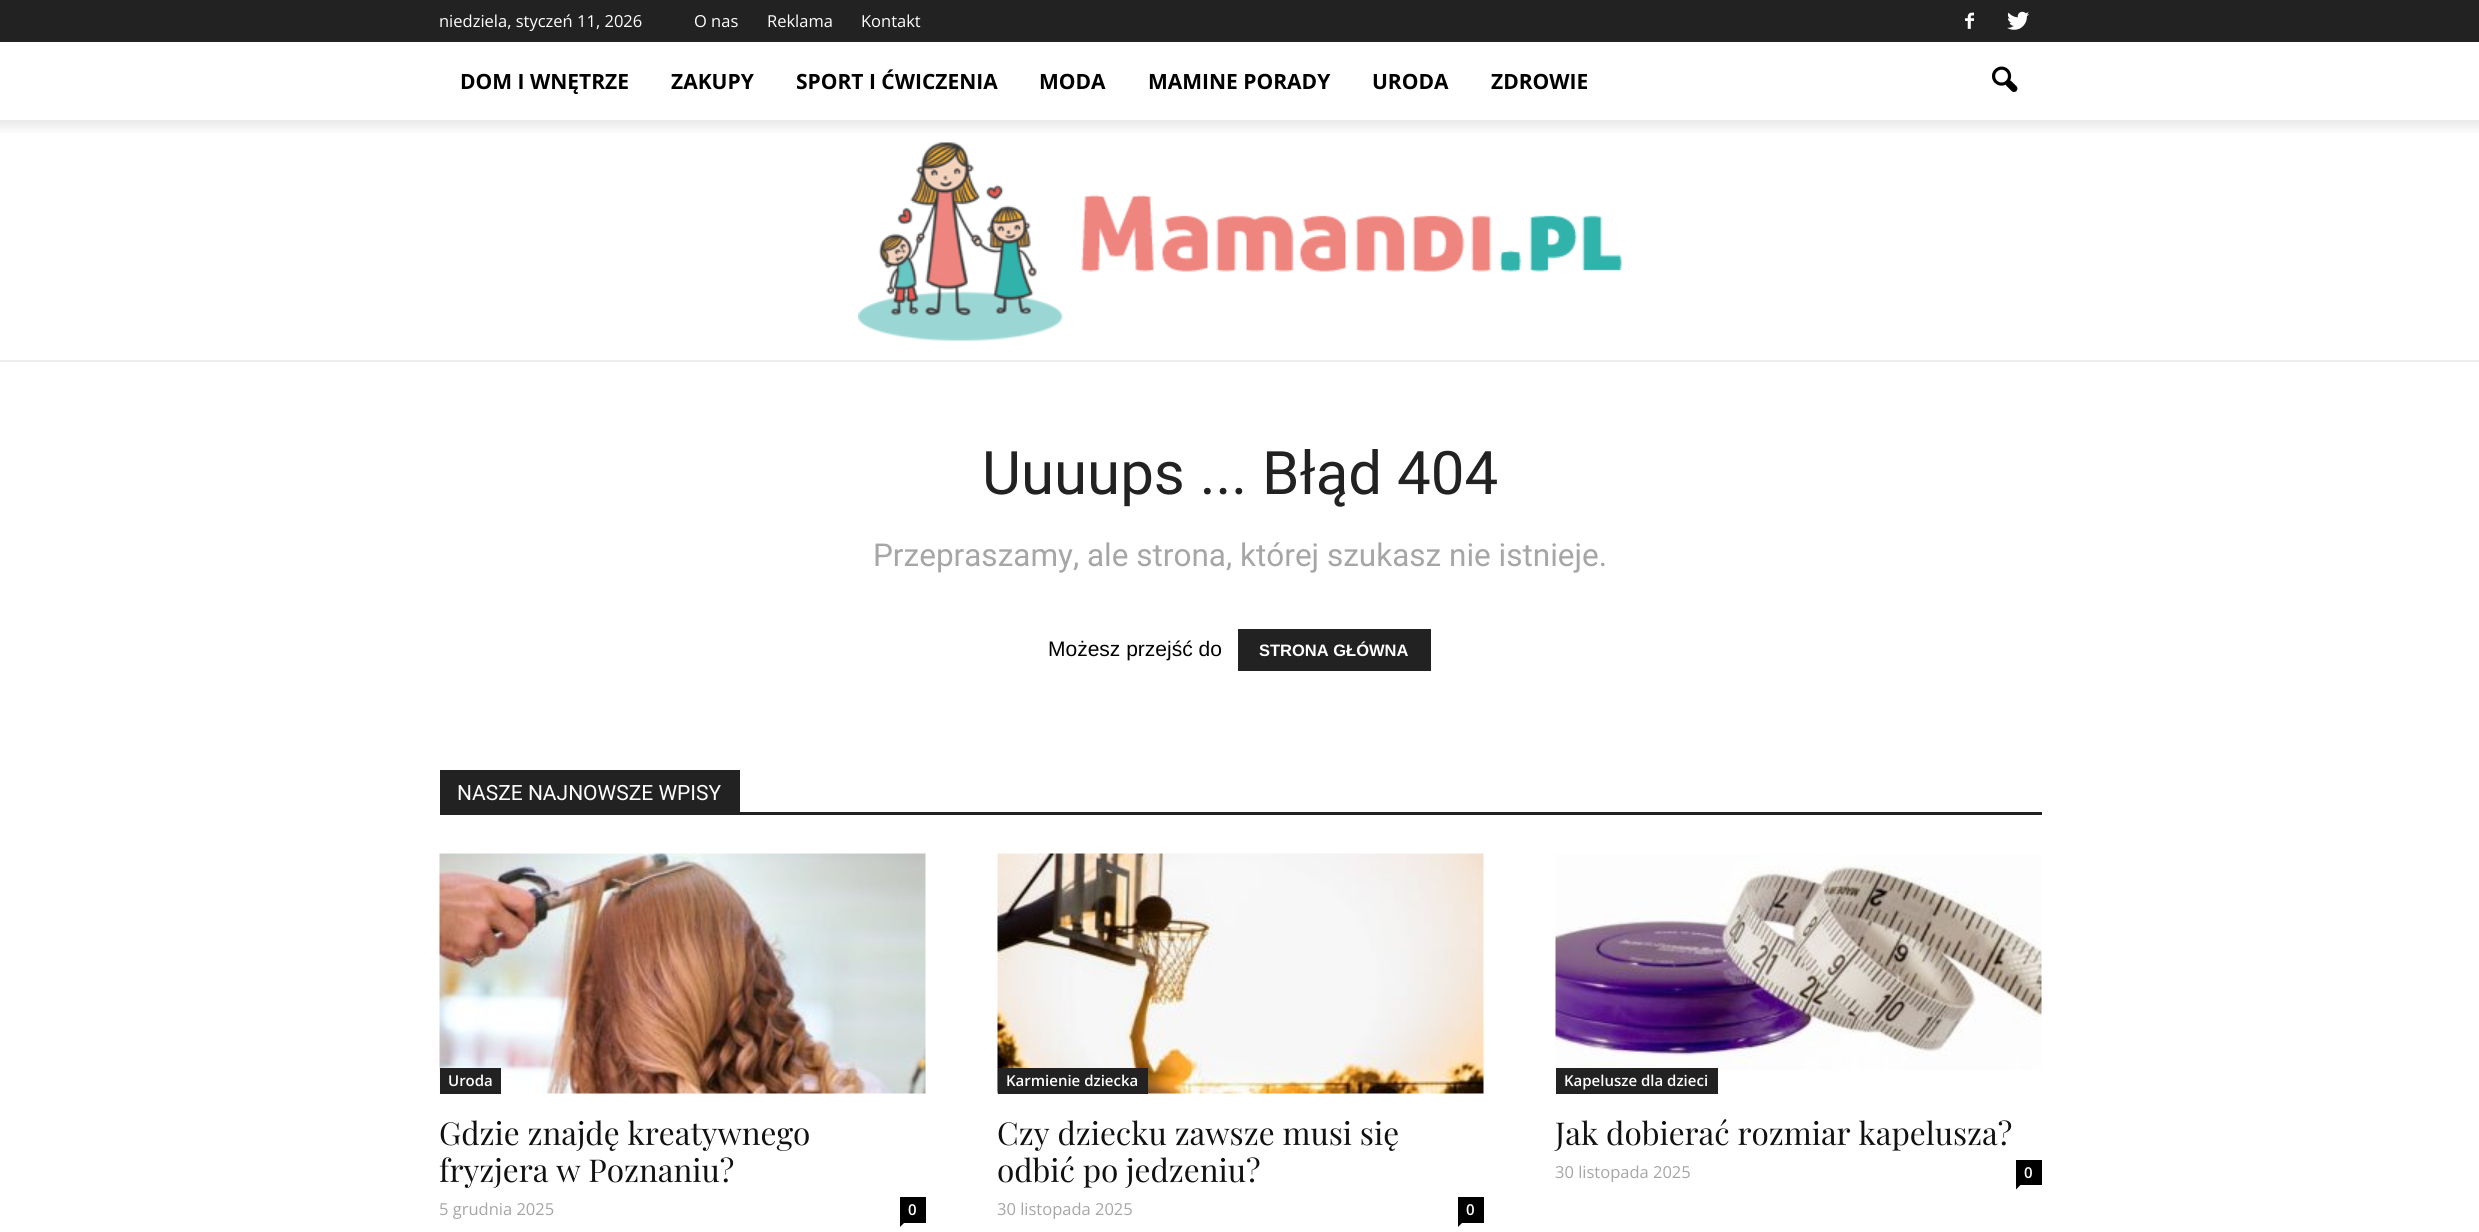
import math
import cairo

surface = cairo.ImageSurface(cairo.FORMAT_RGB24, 2479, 1232)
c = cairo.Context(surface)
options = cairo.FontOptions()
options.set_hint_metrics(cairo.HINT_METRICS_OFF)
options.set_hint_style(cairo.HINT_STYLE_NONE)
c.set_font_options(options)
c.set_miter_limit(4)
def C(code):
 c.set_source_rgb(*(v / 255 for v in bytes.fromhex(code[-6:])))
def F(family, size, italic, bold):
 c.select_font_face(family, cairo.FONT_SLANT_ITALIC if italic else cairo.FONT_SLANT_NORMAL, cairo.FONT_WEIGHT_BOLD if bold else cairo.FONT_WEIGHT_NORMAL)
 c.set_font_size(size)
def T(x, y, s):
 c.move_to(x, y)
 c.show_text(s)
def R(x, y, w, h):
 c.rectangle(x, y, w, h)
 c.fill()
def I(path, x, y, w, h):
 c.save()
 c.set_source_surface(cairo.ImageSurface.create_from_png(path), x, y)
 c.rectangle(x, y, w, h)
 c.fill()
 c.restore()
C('ffffff')
c.paint()
C('222222')
R(0,0,2479,42)
F('Open Sans',16.5,0,0)
C('ffffff')
T(439,27,'niedziela, styczeń 11, 2026')
T(694,27,'O nas')
T(767,27,'Reklama')
T(861,27,'Kontakt')
I('1.png',1965,12,9,17)
I('2.png',2007,11,22,19)
F('Open Sans',21,0,1)
C('000000')
T(460,89,'DOM I WNĘTRZE')
T(671,89,'ZAKUPY')
T(796,89,'SPORT I ĆWICZENIA')
T(1039,89,'MODA')
T(1148,89,'MAMINE PORADY')
T(1372,89,'URODA')
T(1491,89,'ZDROWIE')
I('3.png',1992,66,26,26)
I('4.png',0,120,2479,13)
C('eeeeee')
R(0,360,2479,2)
I('5.png',858,142,764,199)
F('Roboto',60,0,0)
C('222222')
T(982,494,'Uuuups ... Błąd 404')
F('Roboto',31.5,0,0)
C('a6a6a6')
T(873,566,'Przepraszamy, ale strona, której szukasz nie istnieje.')
F('Liberation Sans',21,0,0)
C('000000')
T(1048,656,'Możesz przejść do')
C('222222')
R(1238,629,193,42)
F('Liberation Sans',16.5,0,1)
C('ffffff')
T(1259,656,'STRONA GŁÓWNA')
C('222222')
R(440,812,1602,3)
R(440,770,300,42)
F('Roboto',21,0,0)
C('ffffff')
T(457,800,'NASZE NAJNOWSZE WPISY')
I('6.png',439,853,487,241)
C('222222')
R(440,1068,61,26)
F('Open Sans SemiBold',15,0,0)
C('ffffff')
T(448,1086,'Uroda')
F('Playfair Display',31.5,0,0)
C('111111')
T(439,1145,'Gdzie znajdę kreatywnego')
T(439,1182,'fryzjera w Poznaniu?')
F('Open Sans',16.5,0,0)
C('a6a6a6')
T(439,1215,'5 grudnia 2025')
C('000000')
R(900,1197,26,26)
F('Open Sans SemiBold',15,0,0)
C('ffffff')
T(908,1215,'0')
C('000000')
c.new_path()
c.move_to(900,1222.5)
c.line_to(904.5,1222.5)
c.line_to(900,1227)
c.close_path()
c.fill()
I('7.png',997,853,487,241)
C('222222')
R(998,1068,150,26)
C('ffffff')
T(1006,1086,'Karmienie dziecka')
F('Playfair Display',31.5,0,0)
C('111111')
T(997,1145,'Czy dziecku zawsze musi się')
T(997,1182,'odbić po jedzeniu?')
F('Open Sans',16.5,0,0)
C('a6a6a6')
T(997,1215,'30 listopada 2025')
C('000000')
R(1458,1197,26,26)
F('Open Sans SemiBold',15,0,0)
C('ffffff')
T(1466,1215,'0')
C('000000')
c.new_path()
c.move_to(1458,1222.5)
c.line_to(1462.5,1222.5)
c.line_to(1458,1227)
c.close_path()
c.fill()
I('8.png',1555,854,487,216)
C('222222')
R(1556,1068,162,26)
C('ffffff')
T(1564,1086,'Kapelusze dla dzieci')
F('Playfair Display',31.5,0,0)
C('111111')
T(1555,1145,'Jak dobierać rozmiar kapelusza?')
F('Open Sans',16.5,0,0)
C('a6a6a6')
T(1555,1178,'30 listopada 2025')
C('000000')
R(2016,1160,26,25)
F('Open Sans SemiBold',15,0,0)
C('ffffff')
T(2024,1178,'0')
C('000000')
c.new_path()
c.move_to(2016,1185)
c.line_to(2020.5,1185)
c.line_to(2016,1189.5)
c.close_path()
c.fill()
surface.write_to_png('o.png')
